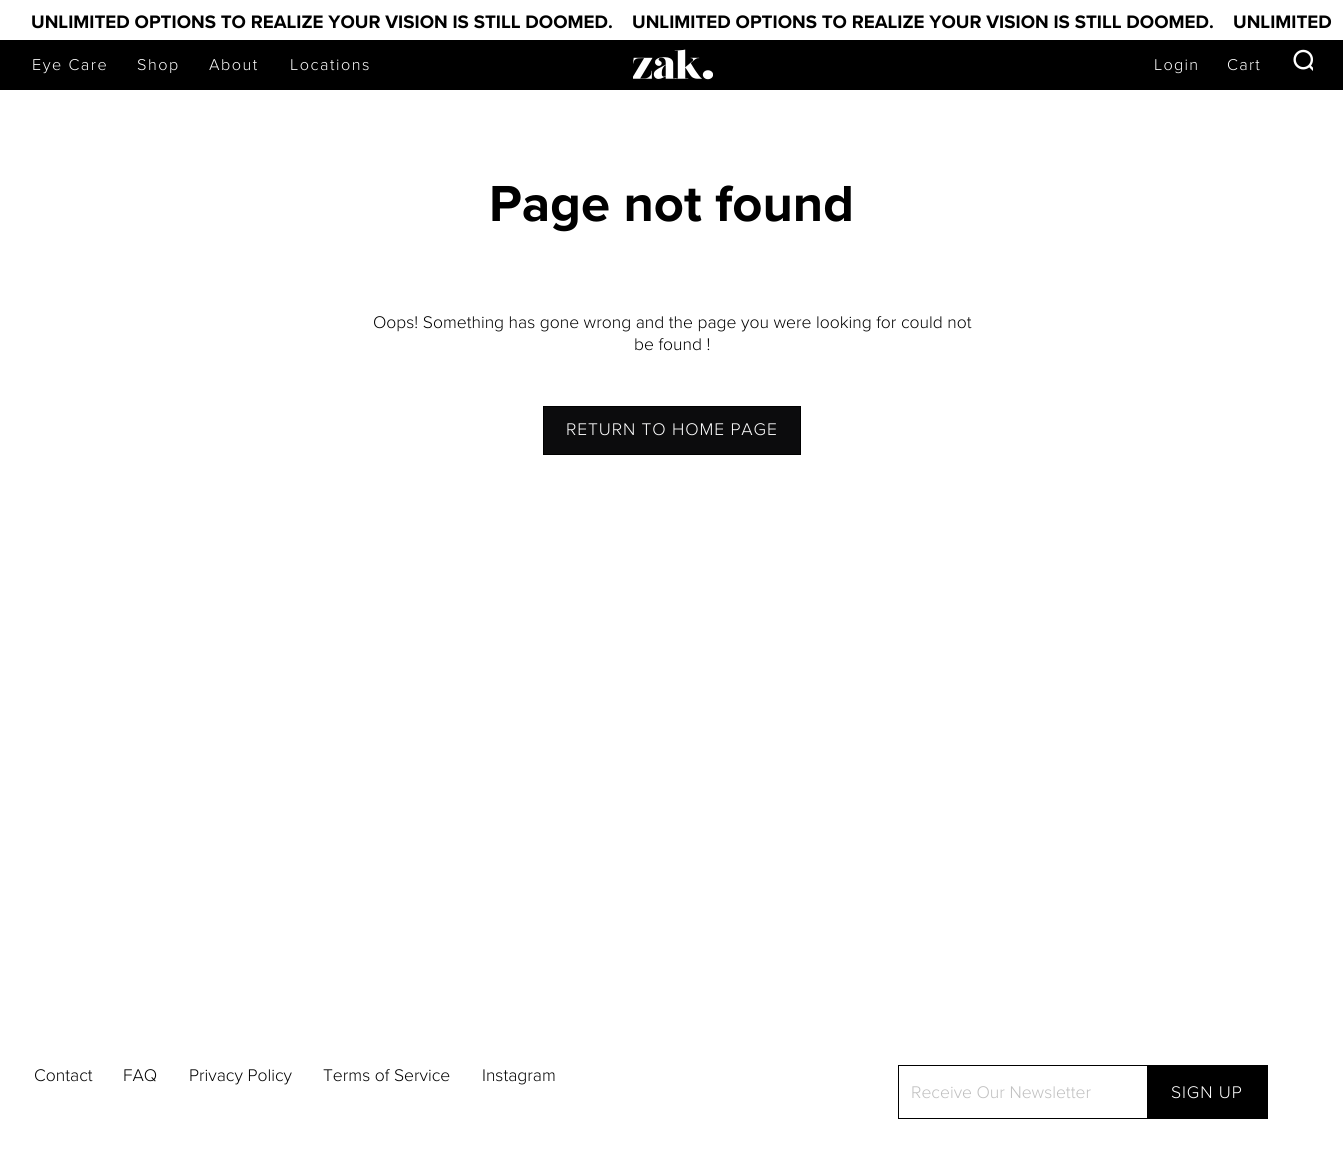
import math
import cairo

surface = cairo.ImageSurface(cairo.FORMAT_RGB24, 1343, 1153)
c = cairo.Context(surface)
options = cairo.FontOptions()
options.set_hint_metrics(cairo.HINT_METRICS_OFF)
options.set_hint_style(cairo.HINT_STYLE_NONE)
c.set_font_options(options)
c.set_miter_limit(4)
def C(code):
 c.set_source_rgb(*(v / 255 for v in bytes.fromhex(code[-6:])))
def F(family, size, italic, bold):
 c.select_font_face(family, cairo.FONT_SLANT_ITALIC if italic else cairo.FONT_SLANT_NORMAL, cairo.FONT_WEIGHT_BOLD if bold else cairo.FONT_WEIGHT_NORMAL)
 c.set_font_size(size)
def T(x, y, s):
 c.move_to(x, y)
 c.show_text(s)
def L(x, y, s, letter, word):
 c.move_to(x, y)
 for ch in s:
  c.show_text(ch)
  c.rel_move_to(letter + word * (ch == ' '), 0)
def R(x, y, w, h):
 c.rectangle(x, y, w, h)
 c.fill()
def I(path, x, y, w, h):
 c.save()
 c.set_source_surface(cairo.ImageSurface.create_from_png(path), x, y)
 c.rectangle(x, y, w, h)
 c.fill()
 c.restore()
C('ffffff')
c.paint()
F('Proxima Nova',18.75,0,1)
C('000000')
T(31,28,'UNLIMITED OPTIONS TO REALIZE YOUR VISION IS STILL DOOMED.')
T(632,28,'UNLIMITED OPTIONS TO REALIZE YOUR VISION IS STILL DOOMED.')
T(1233,28,'UNLIMITED')
R(0,40,1343,50)
F('Proxima Nova Light',16.25,0,0)
C('ffffff')
L(32,70,'Eye Care',1.5,0)
L(137,70,'Shop',1.5,0)
L(209,70,'About',1.5,0)
L(290,70,'Locations',1.5,0)
I('1.png',633,49,80,31)
L(1154,70,'Login',1.25,0)
L(1227,70,'Cart',1.25,0)
I('2.png',1293,49,20,22)
F('Proxima Nova',52.5,0,1)
C('000000')
T(489,221,'Page not found')
F('Proxima Nova Light',17.5,0,0)
T(373,328,'Oops! Something has gone wrong and the page you were looking for could not')
T(634,350,'be found !')
C('0c0c0d')
c.rectangle(543.5,406.5,257,48)
c.fill_preserve()
C('000000')
c.set_line_width(1)
c.stroke()
C('ffffff')
L(566,435,'RETURN TO HOME PAGE',.9,0)
C('000000')
T(34,1081,'Contact')
T(123,1081,'FAQ')
T(189,1081,'Privacy Policy')
T(323,1081,'Terms of Service')
T(482,1081,'Instagram')
c.rectangle(898.5,1065.5,249,53)
c.stroke()
C('bfbfbf')
T(911,1098,'Receive Our Newsletter')
C('000000')
R(1148,1065,120,54)
C('ffffff')
L(1171,1098,'SIGN UP',.9,0)
surface.write_to_png('o.png')
